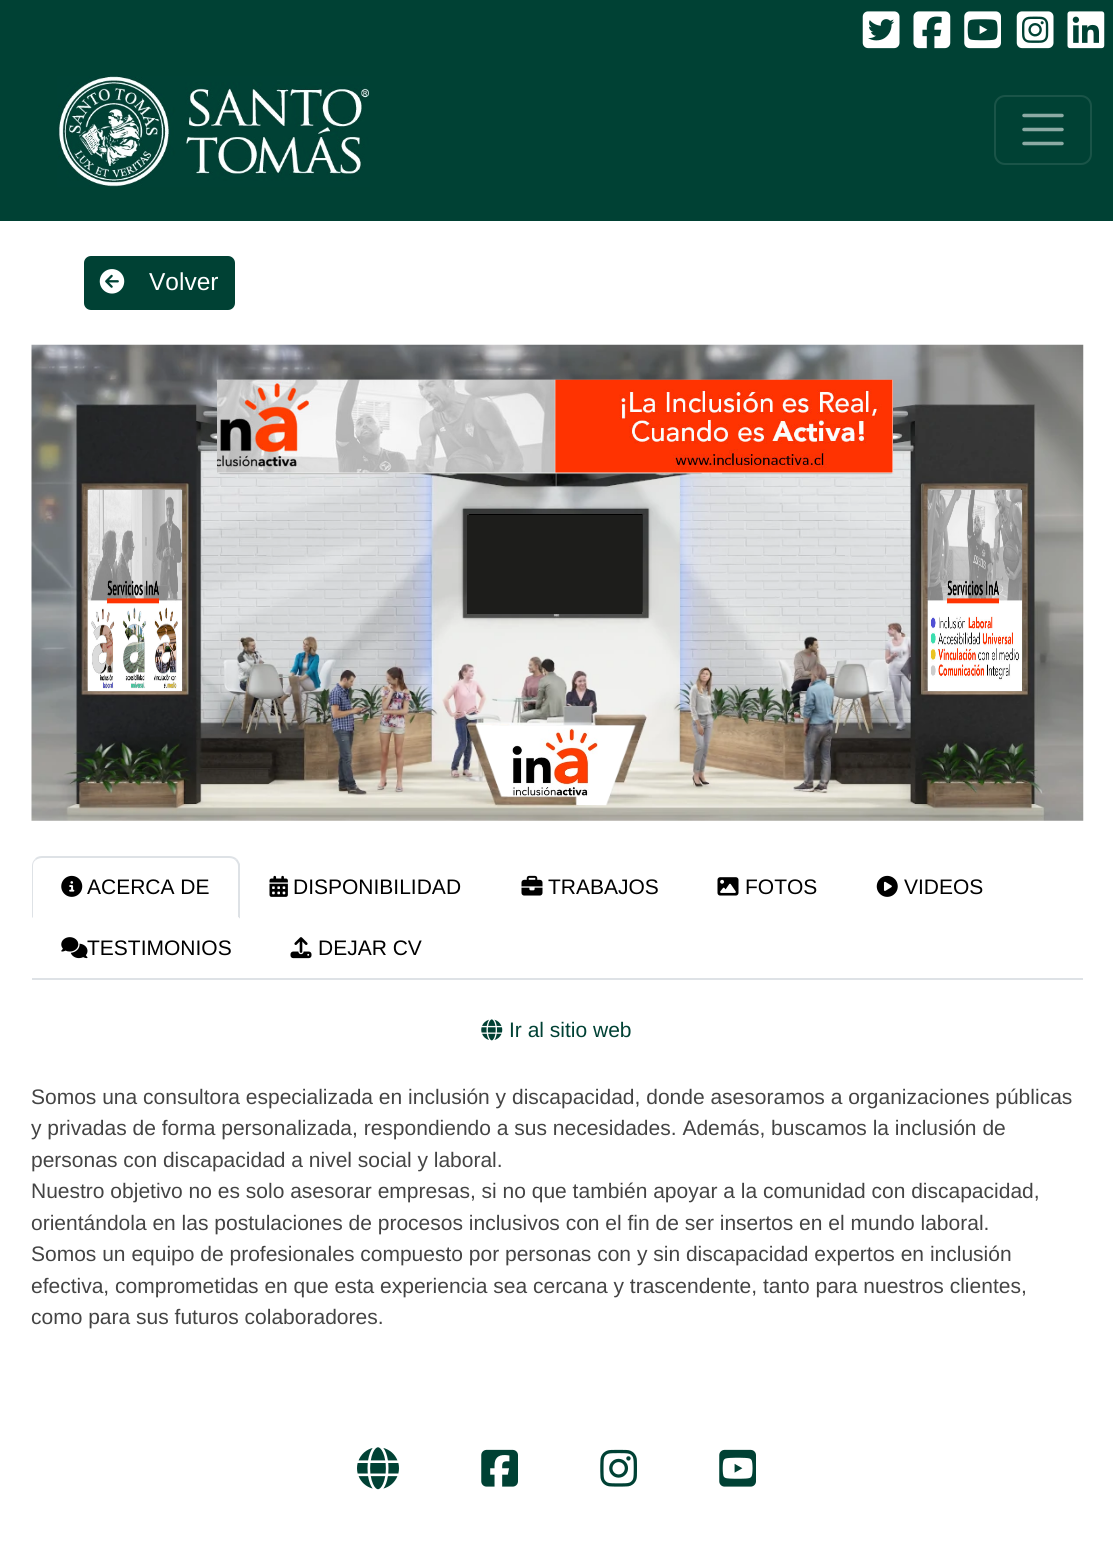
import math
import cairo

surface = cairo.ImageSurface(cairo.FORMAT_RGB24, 1113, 1548)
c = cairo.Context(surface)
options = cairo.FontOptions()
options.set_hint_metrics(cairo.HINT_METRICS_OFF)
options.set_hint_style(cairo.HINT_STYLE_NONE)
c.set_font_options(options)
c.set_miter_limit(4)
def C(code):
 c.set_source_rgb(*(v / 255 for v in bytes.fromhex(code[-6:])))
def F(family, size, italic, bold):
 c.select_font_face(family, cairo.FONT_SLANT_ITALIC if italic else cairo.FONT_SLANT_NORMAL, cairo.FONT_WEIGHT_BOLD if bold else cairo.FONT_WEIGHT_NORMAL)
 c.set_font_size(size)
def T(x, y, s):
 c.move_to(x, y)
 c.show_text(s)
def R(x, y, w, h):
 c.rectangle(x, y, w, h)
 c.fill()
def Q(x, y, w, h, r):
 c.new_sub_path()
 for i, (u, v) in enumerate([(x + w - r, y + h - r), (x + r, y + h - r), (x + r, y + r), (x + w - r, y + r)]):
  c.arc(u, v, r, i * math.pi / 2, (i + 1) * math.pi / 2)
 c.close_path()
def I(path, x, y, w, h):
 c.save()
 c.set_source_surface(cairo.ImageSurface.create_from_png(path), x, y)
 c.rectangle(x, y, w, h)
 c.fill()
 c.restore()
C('ffffff')
c.paint()
C('004134')
R(0,0,1113,221)
I('1.png',862,11,38,38)
I('2.png',913,11,38,38)
I('3.png',964,11,37,38)
I('4.png',1016,11,38,38)
I('5.png',1067,11,38,38)
I('6.png',57,76,313,111)
Q(995,96,96,68,10)
C('1a5448')
c.stroke()
c.new_path()
c.move_to(1024,115.5)
c.line_to(1062,115.5)
c.move_to(1024,129.5)
c.line_to(1062,129.5)
c.move_to(1024,143.5)
c.line_to(1062,143.5)
C('8caaa4')
c.set_line_width(3.5)
c.set_line_cap(cairo.LINE_CAP_ROUND)
c.stroke()
C('004134')
Q(85,257,149,52,6)
c.fill_preserve()
c.set_line_width(2)
c.set_line_cap(cairo.LINE_CAP_BUTT)
c.stroke()
I('7.png',99,269,26,25)
F('Liberation Sans',24.5,0,0)
C('ffffff')
T(149,290,'Volver')
I('8.png',31,344,1053,477)
I('9.png',217,379,676,94)
I('10.png',87,490,95,202)
C('1d1d1b')
R(467,515,175,99)
I('11.png',927,490,95,202)
I('12.png',507,728,91,69)
C('dee2e6')
R(32,978,1051,2)
c.new_path()
c.move_to(42,856)
c.curve_to(39,856,36,857,35,859)
c.line_to(36,860)
c.curve_to(37,859,40,858,42,858)
c.line_to(229,858)
c.curve_to(232,858,234,859,235,860)
c.line_to(237,859)
c.curve_to(235,857,232,856,229,856)
c.close_path()
c.fill()
c.new_path()
c.move_to(237,859)
c.curve_to(238,860,239,862,240,864)
c.line_to(240,919)
c.line_to(238,917)
c.line_to(238,866)
c.curve_to(238,864,237,862,235,860)
c.close_path()
c.fill()
C('ffffff')
c.new_path()
c.move_to(240,919)
c.line_to(32,919)
c.line_to(33,917)
c.line_to(238,917)
c.close_path()
c.fill()
C('dee2e6')
c.new_path()
c.move_to(35,859)
c.curve_to(33,861,32,863,32,866)
c.line_to(32,918)
c.line_to(33,917)
c.line_to(33,866)
c.curve_to(33,863,34,861,36,860)
c.close_path()
c.fill()
I('13.png',61,875,22,22)
F('Liberation Sans',21,0,0)
C('000000')
T(87,894,'ACERCA DE')
I('14.png',269,875,19,22)
T(293,894,'DISPONIBILIDAD')
I('15.png',521,875,22,21)
T(548,894,'TRABAJOS')
I('16.png',717,877,22,19)
T(745,894,'FOTOS')
I('17.png',876,875,22,22)
T(904,894,'VIDEOS')
I('18.png',61,937,27,22)
T(87,955,'TESTIMONIOS')
I('19.png',290,937,22,22)
T(318,955,'DEJAR CV')
I('20.png',481,1019,22,22)
C('004134')
T(509,1037,'Ir al sitio web')
C('444444')
T(31,1104,'Somos una consultora especializada en inclusión y discapacidad, donde asesoramos a organizaciones públicas')
T(31,1135,'y privadas de forma personalizada, respondiendo a sus necesidades. Además, buscamos la inclusión de')
T(31,1167,'personas con discapacidad a nivel social y laboral.')
T(31,1198,'Nuestro objetivo no es solo asesorar empresas, si no que también apoyar a la comunidad con discapacidad,')
T(31,1230,'orientándola en las postulaciones de procesos inclusivos con el fin de ser insertos en el mundo laboral.')
T(31,1261,'Somos un equipo de profesionales compuesto por personas con y sin discapacidad expertos en inclusión')
T(31,1293,'efectiva, comprometidas en que esta experiencia sea cercana y trascendente, tanto para nuestros clientes,')
T(31,1324,'como para sus futuros colaboradores.')
I('21.png',357,1447,42,43)
I('22.png',481,1449,37,38)
I('23.png',600,1449,37,38)
I('24.png',719,1449,37,38)
surface.write_to_png('o.png')
